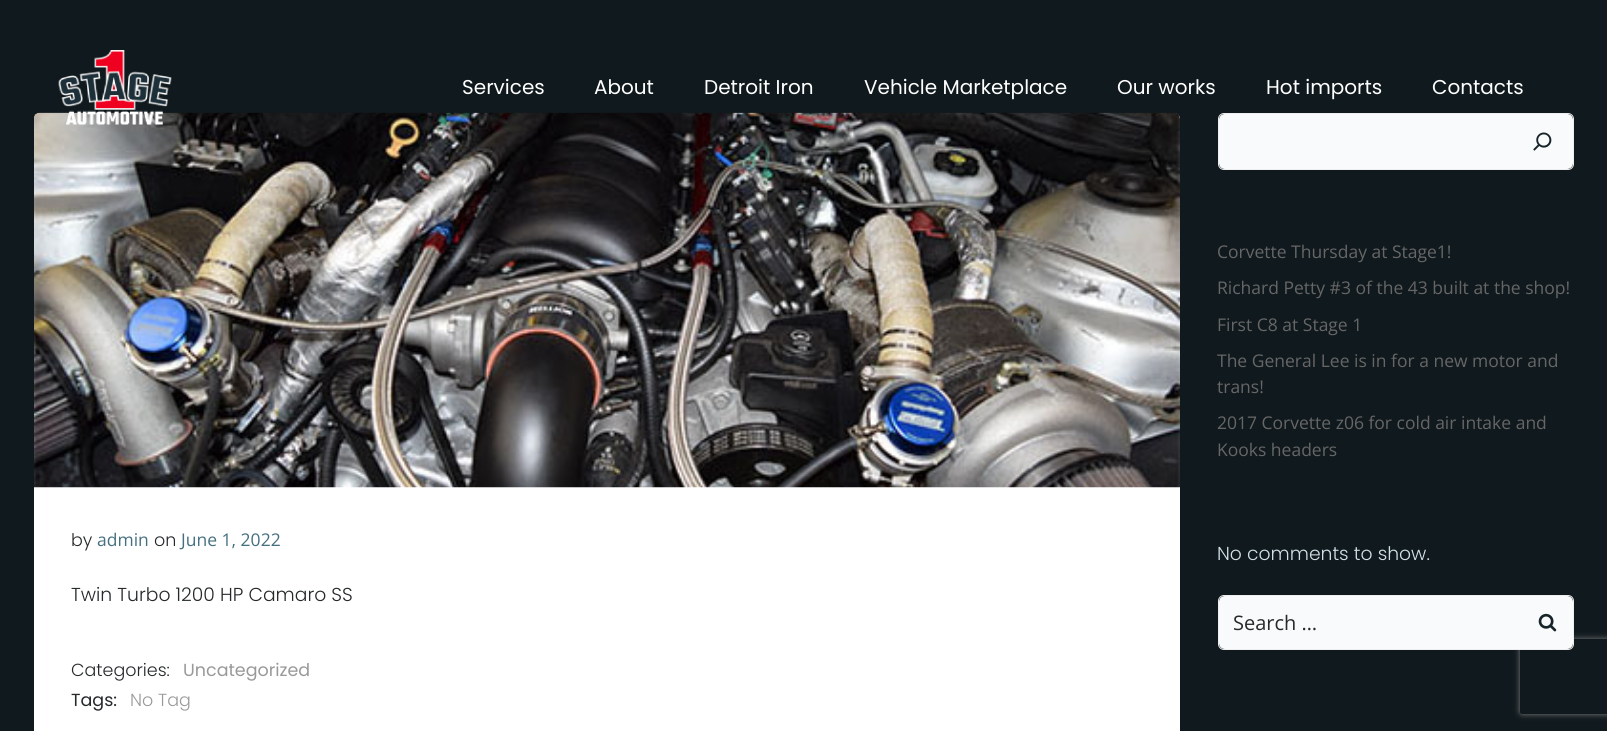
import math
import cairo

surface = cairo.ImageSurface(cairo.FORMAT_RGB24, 1607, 731)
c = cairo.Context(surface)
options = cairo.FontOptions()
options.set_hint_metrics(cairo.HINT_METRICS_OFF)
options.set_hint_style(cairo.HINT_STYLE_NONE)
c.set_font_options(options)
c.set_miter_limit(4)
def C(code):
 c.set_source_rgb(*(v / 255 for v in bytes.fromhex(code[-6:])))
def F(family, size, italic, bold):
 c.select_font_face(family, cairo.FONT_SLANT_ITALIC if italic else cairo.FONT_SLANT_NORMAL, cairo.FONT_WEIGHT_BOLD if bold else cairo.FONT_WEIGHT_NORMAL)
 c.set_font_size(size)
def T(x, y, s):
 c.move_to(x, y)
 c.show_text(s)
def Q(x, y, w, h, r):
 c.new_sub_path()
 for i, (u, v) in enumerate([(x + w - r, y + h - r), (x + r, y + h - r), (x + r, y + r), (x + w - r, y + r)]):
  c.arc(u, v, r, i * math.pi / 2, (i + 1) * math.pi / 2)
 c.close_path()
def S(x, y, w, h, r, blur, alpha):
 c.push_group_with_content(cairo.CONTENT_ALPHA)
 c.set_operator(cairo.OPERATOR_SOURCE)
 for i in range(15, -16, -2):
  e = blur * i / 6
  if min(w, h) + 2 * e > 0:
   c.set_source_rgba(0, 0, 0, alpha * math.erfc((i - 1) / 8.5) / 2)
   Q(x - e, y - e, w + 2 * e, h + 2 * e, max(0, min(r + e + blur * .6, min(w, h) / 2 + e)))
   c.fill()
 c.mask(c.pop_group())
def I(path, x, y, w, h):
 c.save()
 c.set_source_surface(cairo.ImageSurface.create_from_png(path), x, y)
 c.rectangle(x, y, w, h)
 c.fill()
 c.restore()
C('10191d')
c.paint()
C('ffffff')
Q(34,113,1146,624,6)
c.fill()
I('2.png',34,112,1146,376)
I('1.png',58,50,114,75)
F('Poppins',20,0,0)
T(462,94,'Services')
T(594,94,'About')
T(704,94,'Detroit Iron')
T(864,94,'Vehicle Marketplace')
T(1117,94,'Our works')
T(1266,94,'Hot imports')
T(1432,94,'Contacts')
F('Poppins Light',17.5,0,0)
C('25292a')
T(71,546,'by')
F('Open Sans',17.5,0,0)
C('46707f')
T(97,546,'admin')
F('Poppins Light',17.5,0,0)
C('25292a')
T(154,546,'on')
F('Open Sans',17.5,0,0)
C('46707f')
T(181,546,'June 1, 2022')
F('Poppins Light',18.75,0,0)
C('25292a')
T(71,601,'Twin Turbo 1200 HP Camaro SS')
F('Poppins Light',17.5,0,0)
T(71,676,'Categories:')
F('Poppins',17.5,0,0)
C('999999')
T(183,676,'Uncategorized')
C('25292a')
T(71,706,'Tags:')
F('Poppins Light',17.5,0,0)
C('999999')
T(130,706,'No Tag')
Q(1218.5,113.5,355,56,5.5)
C('eeeeee')
c.set_line_width(1)
c.stroke()
c.save()
Q(1219,114,354,55,5)
c.clip()
C('f9fafb')
c.new_path()
c.move_to(1225,114)
c.line_to(1513,114)
c.line_to(1513,169)
c.line_to(1225,169)
c.curve_to(1221.5,169,1219,166.5,1219,163)
c.line_to(1219,120)
c.curve_to(1219,116.5,1221.5,114,1225,114)
c.close_path()
c.fill()
c.new_path()
c.move_to(1513,114)
c.line_to(1567,114)
c.curve_to(1570.5,114,1573,116.5,1573,120)
c.line_to(1573,163)
c.curve_to(1573,166.5,1570.5,169,1567,169)
c.line_to(1513,169)
c.close_path()
c.fill()
c.restore()
I('3.png',1533,132,19,19)
F('Open Sans',17.5,0,0)
C('666666')
T(1217,258,'Corvette Thursday at Stage1!')
T(1217,294,'Richard Petty #3 of the 43 built at the shop!')
T(1217,331,'First C8 at Stage 1')
T(1217,367,'The General Lee is in for a new motor and')
T(1217,393,'trans!')
T(1217,429,'2017 Corvette z06 for cold air intake and')
T(1217,456,'Kooks headers')
F('Poppins Light',18.75,0,0)
C('d1e1e7')
T(1217,560,'No comments to show.')
c.save()
c.set_fill_rule(cairo.FILL_RULE_EVEN_ODD)
c.new_path()
c.move_to(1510,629)
c.line_to(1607,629)
c.line_to(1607,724)
c.line_to(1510,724)
c.close_path()
c.move_to(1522.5,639)
c.line_to(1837.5,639)
c.curve_to(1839,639,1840,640,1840,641.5)
c.line_to(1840,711.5)
c.curve_to(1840,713,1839,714,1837.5,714)
c.line_to(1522.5,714)
c.curve_to(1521,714,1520,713,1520,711.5)
c.line_to(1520,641.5)
c.curve_to(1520,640,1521,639,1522.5,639)
c.close_path()
c.clip()
C('808080')
S(1520,639,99,75,2.5,3,1)
c.restore()
Q(1218.5,595.5,355,54,5.5)
C('eeeeee')
c.stroke()
c.save()
Q(1219,596,354,53,5)
c.clip()
C('f9fafb')
c.new_path()
c.move_to(1225,596)
c.line_to(1523,596)
c.line_to(1523,649)
c.line_to(1225,649)
c.curve_to(1221.5,649,1219,646.5,1219,643)
c.line_to(1219,602)
c.curve_to(1219,598.5,1221.5,596,1225,596)
c.close_path()
c.fill()
c.restore()
F('Open Sans',20,0,0)
C('25292a')
T(1233,630,'Search …')
c.save()
Q(1219,596,354,53,5)
c.clip()
C('f9fafb')
c.new_path()
c.move_to(1523,596)
c.line_to(1567,596)
c.curve_to(1570.5,596,1573,598.5,1573,602)
c.line_to(1573,643)
c.curve_to(1573,646.5,1570.5,649,1567,649)
c.line_to(1523,649)
c.close_path()
c.fill()
c.restore()
I('4.png',1538,613,19,19)
surface.write_to_png('o.png')
